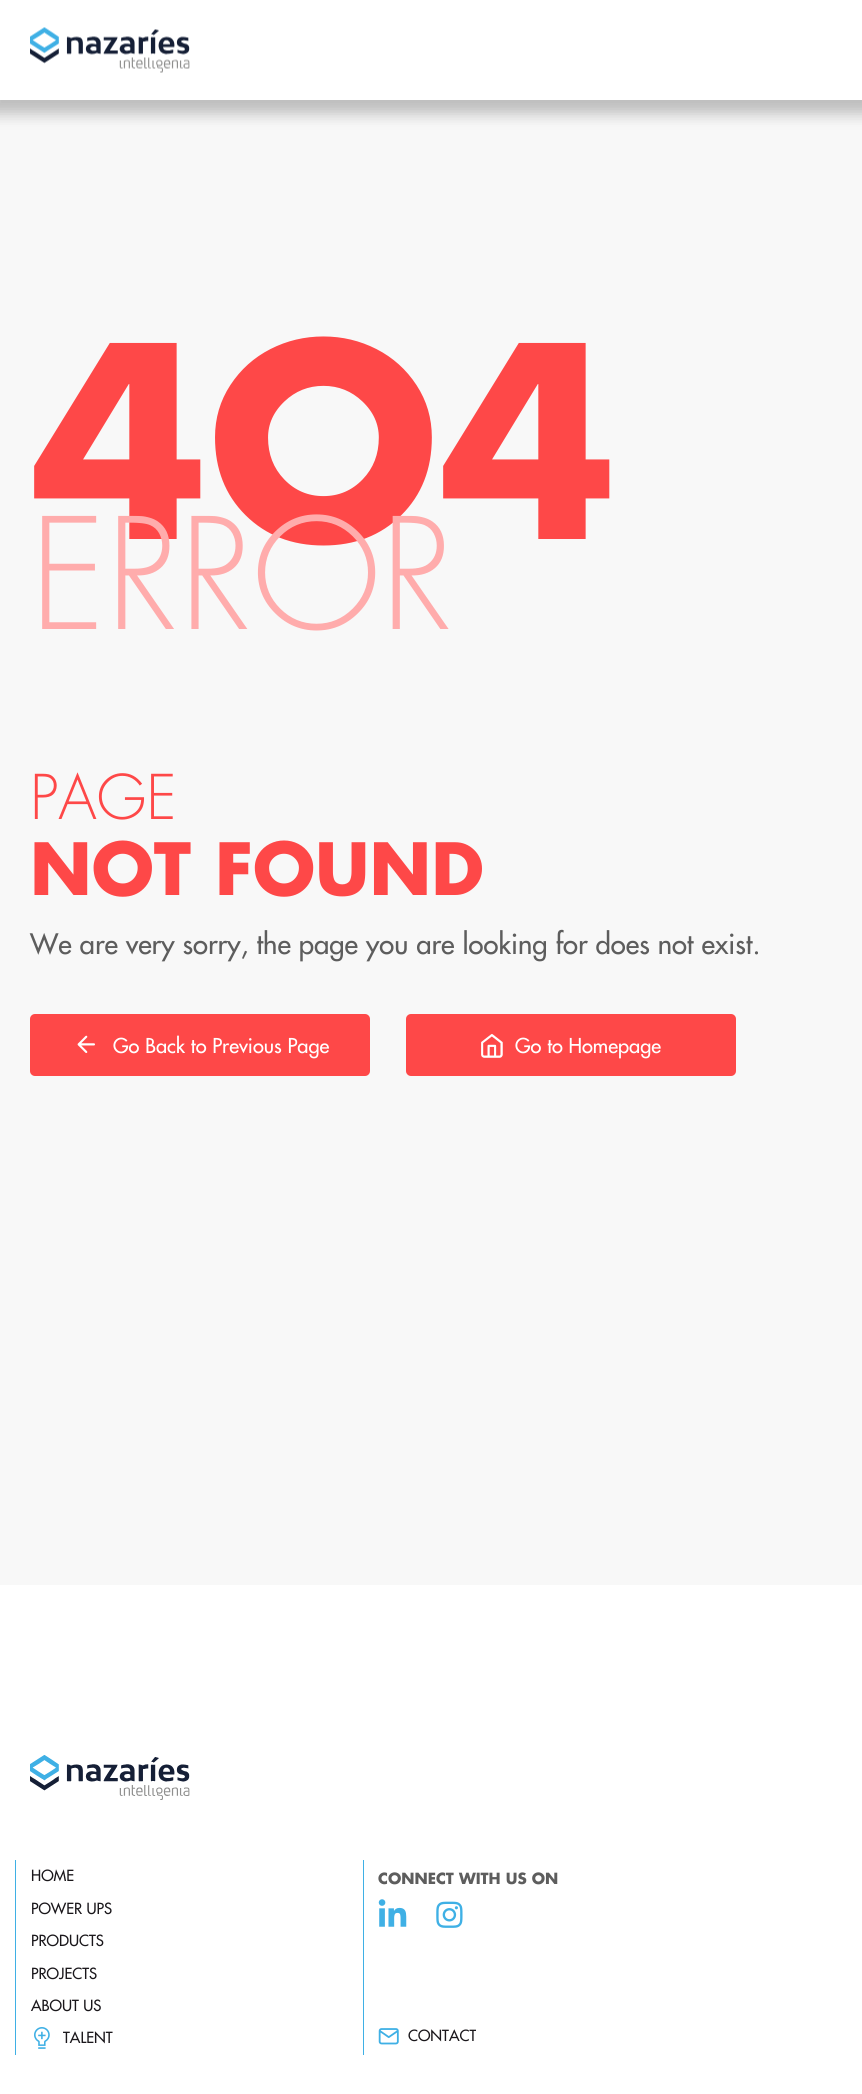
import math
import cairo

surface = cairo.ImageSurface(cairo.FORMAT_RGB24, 862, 2094)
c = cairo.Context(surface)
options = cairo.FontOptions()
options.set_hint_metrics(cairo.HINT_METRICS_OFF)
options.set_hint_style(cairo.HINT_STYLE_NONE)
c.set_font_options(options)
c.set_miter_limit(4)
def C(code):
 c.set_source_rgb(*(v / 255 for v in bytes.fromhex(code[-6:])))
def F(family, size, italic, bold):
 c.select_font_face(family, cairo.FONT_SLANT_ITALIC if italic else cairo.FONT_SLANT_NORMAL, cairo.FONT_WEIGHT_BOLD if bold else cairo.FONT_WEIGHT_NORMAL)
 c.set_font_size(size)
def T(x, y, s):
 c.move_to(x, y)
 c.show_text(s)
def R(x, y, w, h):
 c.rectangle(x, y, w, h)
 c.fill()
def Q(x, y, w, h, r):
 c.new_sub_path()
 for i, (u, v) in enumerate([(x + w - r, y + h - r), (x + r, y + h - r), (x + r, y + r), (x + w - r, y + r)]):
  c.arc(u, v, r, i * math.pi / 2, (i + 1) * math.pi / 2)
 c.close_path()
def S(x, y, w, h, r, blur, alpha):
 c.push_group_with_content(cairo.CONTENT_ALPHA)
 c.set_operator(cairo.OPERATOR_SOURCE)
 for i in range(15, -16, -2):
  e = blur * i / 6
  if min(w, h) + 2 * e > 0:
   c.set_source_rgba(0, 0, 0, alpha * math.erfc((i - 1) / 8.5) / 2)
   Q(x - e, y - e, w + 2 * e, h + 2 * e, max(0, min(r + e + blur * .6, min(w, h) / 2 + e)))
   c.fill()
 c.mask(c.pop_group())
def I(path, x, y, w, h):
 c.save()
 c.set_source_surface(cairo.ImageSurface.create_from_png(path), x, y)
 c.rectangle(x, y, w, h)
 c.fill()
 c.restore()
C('ffffff')
c.paint()
C('f8f8f8')
R(0,100,862,1485)
C('000000')
S(-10,-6,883,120,0,7.5,.24)
C('ffffff')
R(0,0,862,100)
I('1.png',30,27,160,46)
F('Futura',260,0,1)
C('fe4848')
T(30,539,'4O4')
F('Futura Light',150,0,0)
C('ffacac')
T(30,629,'ERROR')
F('Futura Light',60,0,0)
C('fe4848')
T(30,819,'PAGE')
F('Futura',70,0,1)
T(30,895,'NOT FOUND')
F('Futura',27.5,0,0)
C('5d5d5d')
T(30,954,'We are very sorry, the page you are looking for does not exist.')
C('fe4848')
Q(30,1014,340,62,5)
c.fill()
I('2.png',77,1035,18,18)
F('Futura',20,0,0)
C('ffffff')
T(113,1053,'Go Back to Previous Page')
C('fe4848')
Q(406,1014,330,62,5)
c.fill()
I('3.png',481,1034,22,24)
C('ffffff')
T(515,1053,'Go to Homepage')
I('4.png',30,1755,160,45)
C('3fb0e5')
R(15,1860,1,195)
F('Futura',15,0,0)
C('1a171b')
T(31,1881,'HOME')
T(31,1914,'POWER UPS')
T(31,1946,'PRODUCTS')
T(31,1979,'PROJECTS')
T(31,2011,'ABOUT US')
I('5.png',34,2027,16,22)
T(63,2043,'TALENT')
C('3fb0e5')
R(363,1860,1,195)
F('Futura',15,0,1)
C('5d5d5d')
T(378,1884,'CONNECT WITH US ON')
I('6.png',378,1899,29,28)
I('7.png',436,1901,27,27)
I('8.png',378,2028,21,17)
F('Futura',15,0,0)
C('1a171b')
T(408,2041,'CONTACT')
surface.write_to_png('o.png')
